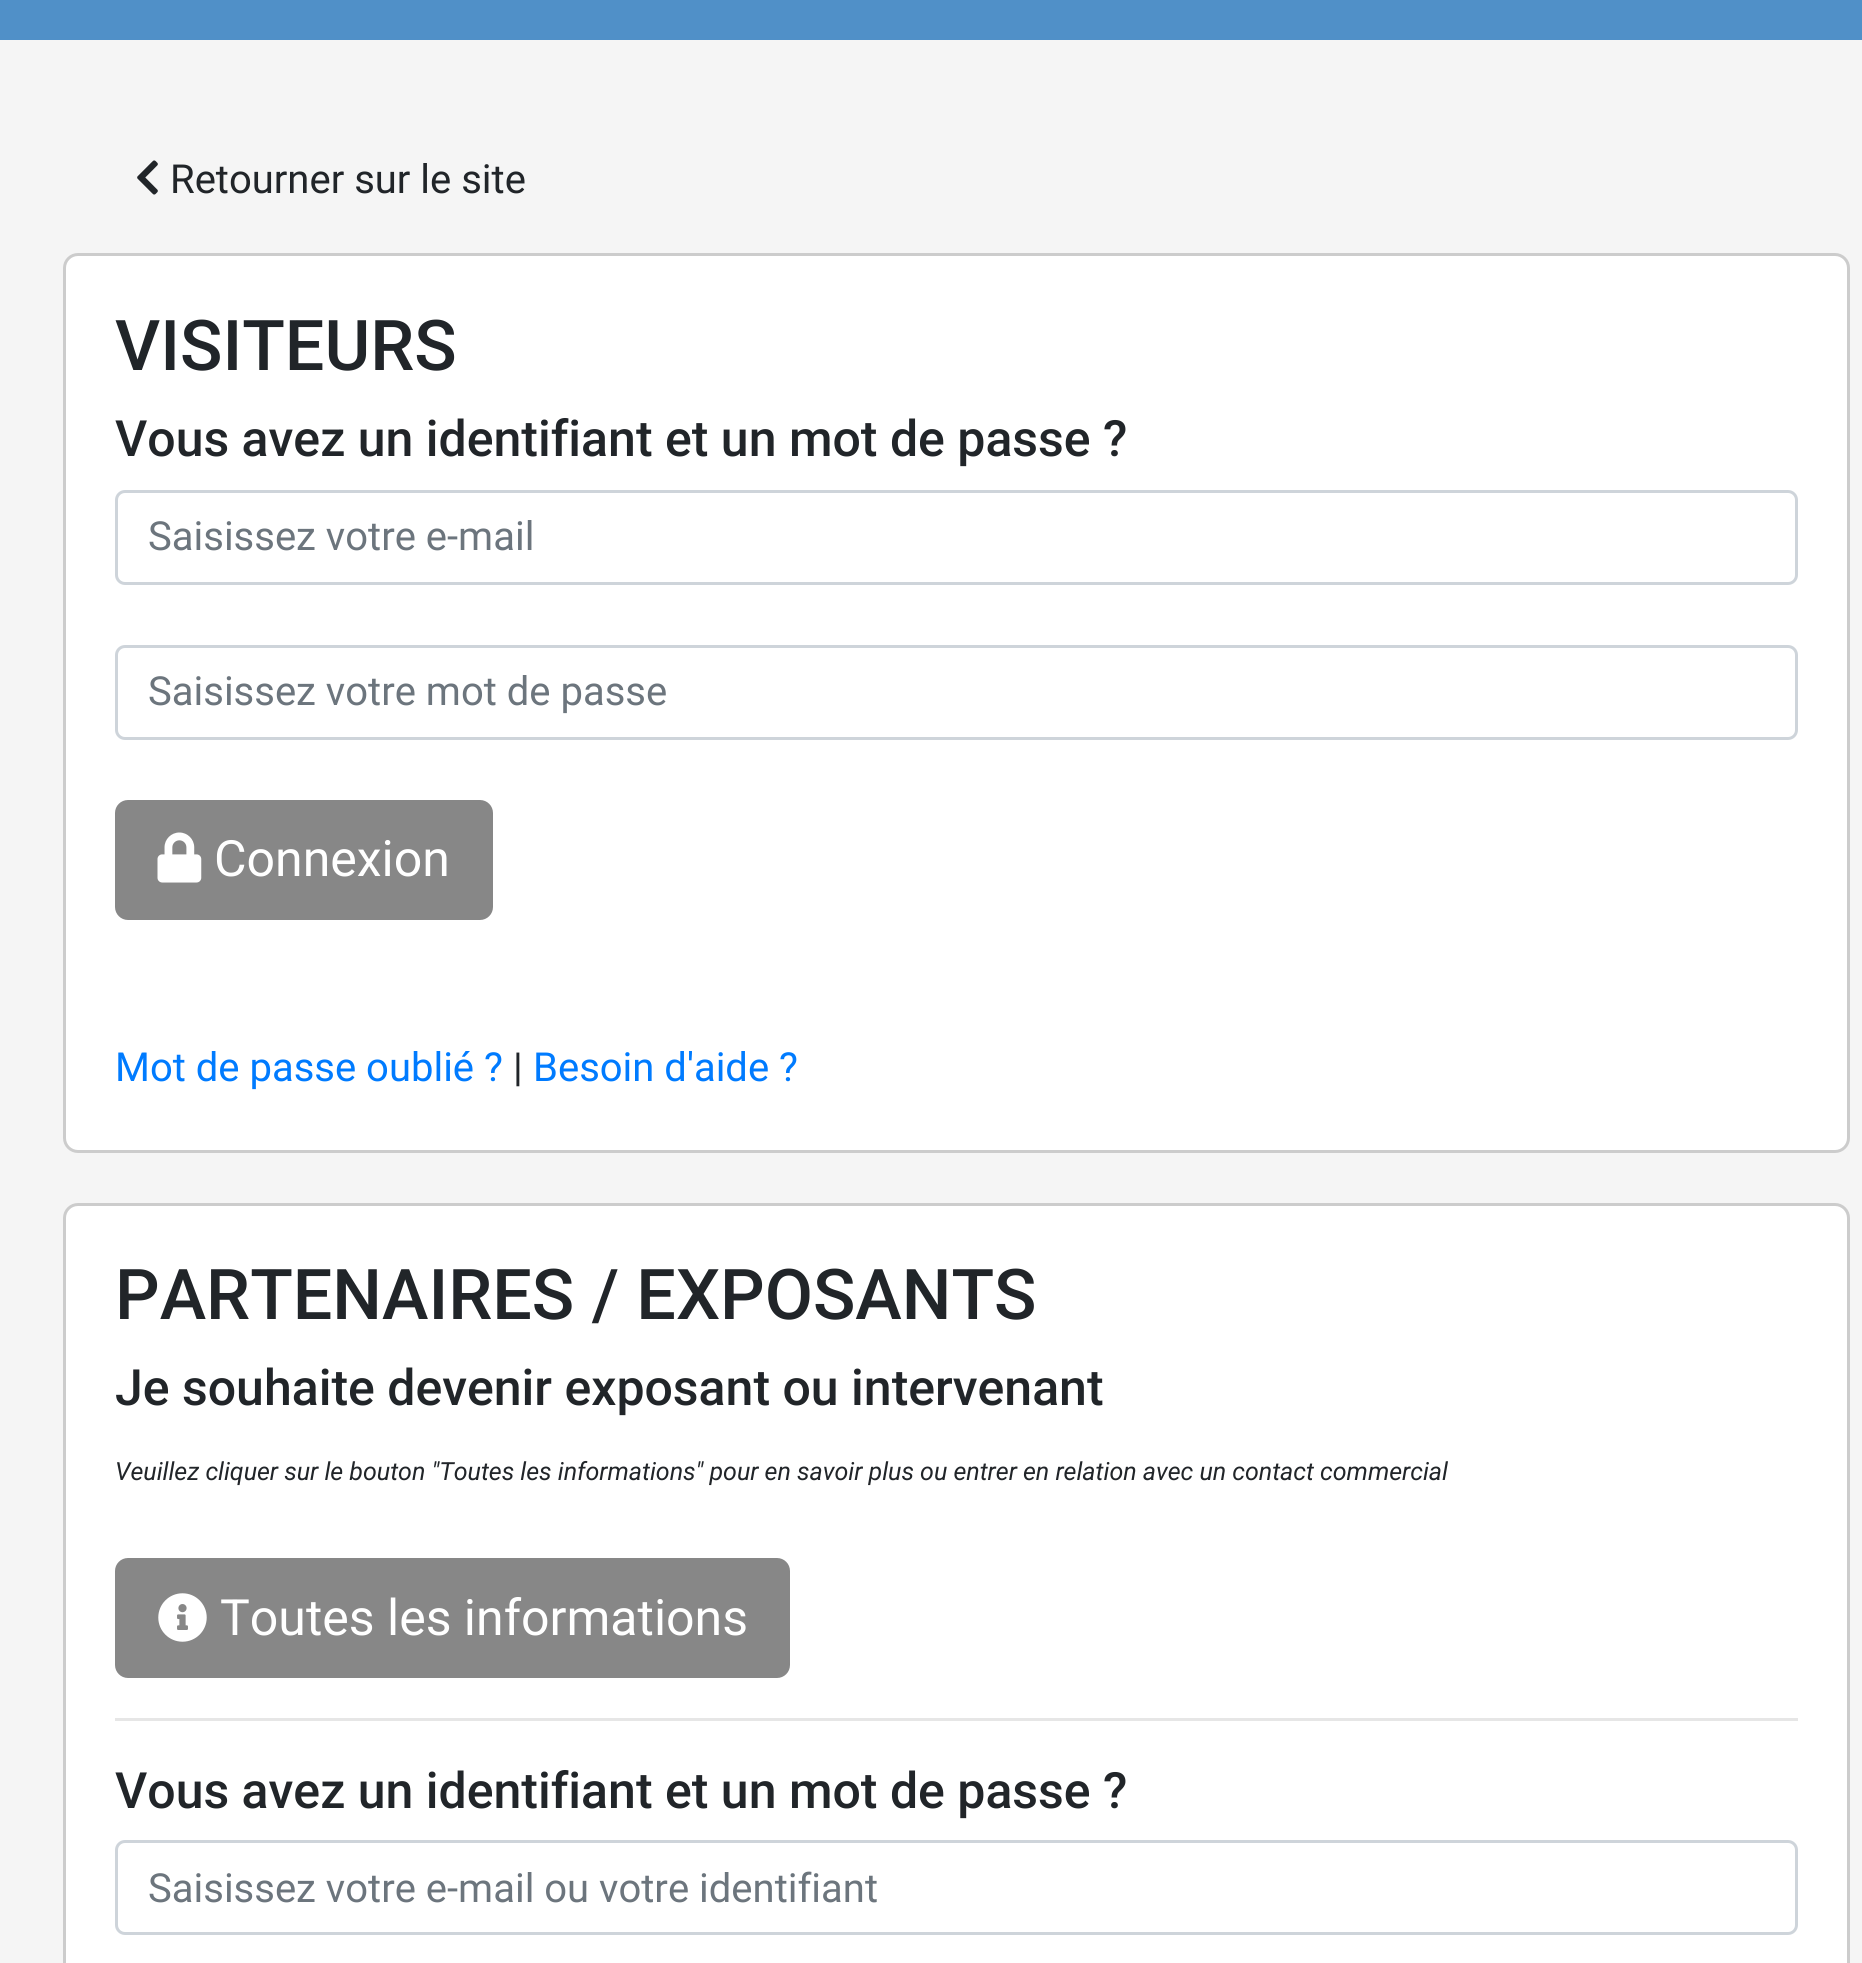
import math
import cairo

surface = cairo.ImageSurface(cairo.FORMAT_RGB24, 1862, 1963)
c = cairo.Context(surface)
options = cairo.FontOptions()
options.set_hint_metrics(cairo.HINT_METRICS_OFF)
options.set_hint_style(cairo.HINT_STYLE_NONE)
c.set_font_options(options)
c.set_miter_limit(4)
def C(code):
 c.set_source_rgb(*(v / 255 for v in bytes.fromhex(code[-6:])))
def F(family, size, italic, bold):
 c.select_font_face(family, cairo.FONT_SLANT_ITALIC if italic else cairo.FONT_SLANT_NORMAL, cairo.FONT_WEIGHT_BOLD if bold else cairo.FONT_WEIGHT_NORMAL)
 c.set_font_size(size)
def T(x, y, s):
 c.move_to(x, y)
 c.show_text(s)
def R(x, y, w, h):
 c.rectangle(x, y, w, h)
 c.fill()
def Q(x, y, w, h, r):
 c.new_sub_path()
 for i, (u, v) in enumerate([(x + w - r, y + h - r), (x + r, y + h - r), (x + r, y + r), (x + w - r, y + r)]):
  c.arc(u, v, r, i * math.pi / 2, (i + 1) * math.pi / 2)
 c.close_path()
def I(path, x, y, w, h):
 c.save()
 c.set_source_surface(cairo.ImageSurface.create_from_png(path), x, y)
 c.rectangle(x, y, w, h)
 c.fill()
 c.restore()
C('f5f5f5')
c.paint()
C('5090c8')
R(0,0,1862,40)
I('1.png',137,160,21,35)
F('Roboto',40,0,0)
C('212529')
T(170,193,'Retourner sur le site')
C('ffffff')
Q(64.5,254.5,1784,897,13.5)
c.fill_preserve()
C('cccccc')
c.set_line_width(3)
c.stroke()
F('Roboto Medium',70,0,0)
C('212529')
T(115,370,'VISITEURS')
F('Roboto Medium',50,0,0)
T(115,456,'Vous avez un identifiant et un mot de passe ?')
Q(116.5,491.5,1680,92,8.5)
C('ced4da')
c.stroke()
F('Roboto',40,0,0)
C('6c757d')
T(148,550,'Saisissez votre e-mail')
Q(116.5,646.5,1680,92,8.5)
C('ced4da')
c.stroke()
C('6c757d')
T(148,705,'Saisissez votre mot de passe')
C('878787')
Q(116.5,801.5,375,117,11.5)
c.fill_preserve()
c.stroke()
I('2.png',157,832,45,51)
F('Roboto',50,0,0)
C('ffffff')
T(214,876,'Connexion')
F('Roboto',40,0,0)
C('007bff')
T(115,1081,'Mot de passe oublié ?')
C('212529')
T(513,1081,'|')
C('007bff')
T(533,1081,'Besoin d\'aide ?')
C('ffffff')
Q(64.5,1204.5,1784,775,13.5)
c.fill_preserve()
C('cccccc')
c.stroke()
F('Roboto Medium',70,0,0)
C('212529')
T(115,1319,'PARTENAIRES / EXPOSANTS')
F('Roboto Medium',50,0,0)
T(115,1405,'Je souhaite devenir exposant ou intervenant')
F('Roboto',25,1,0)
T(115,1480,'Veuillez cliquer sur le bouton "Toutes les informations" pour en savoir plus ou entrer en relation avec un contact commercial')
C('878787')
Q(116.5,1559.5,672,117,11.5)
c.fill_preserve()
c.stroke()
I('3.png',158,1593,49,49)
F('Roboto',50,0,0)
C('ffffff')
T(220,1635,'Toutes les informations')
C('e6e6e6')
R(115,1718,1683,3)
F('Roboto Medium',50,0,0)
C('212529')
T(115,1808,'Vous avez un identifiant et un mot de passe ?')
Q(116.5,1841.5,1680,92,8.5)
C('ced4da')
c.stroke()
F('Roboto',40,0,0)
C('6c757d')
T(148,1902,'Saisissez votre e-mail ou votre identifiant')
surface.write_to_png('o.png')
